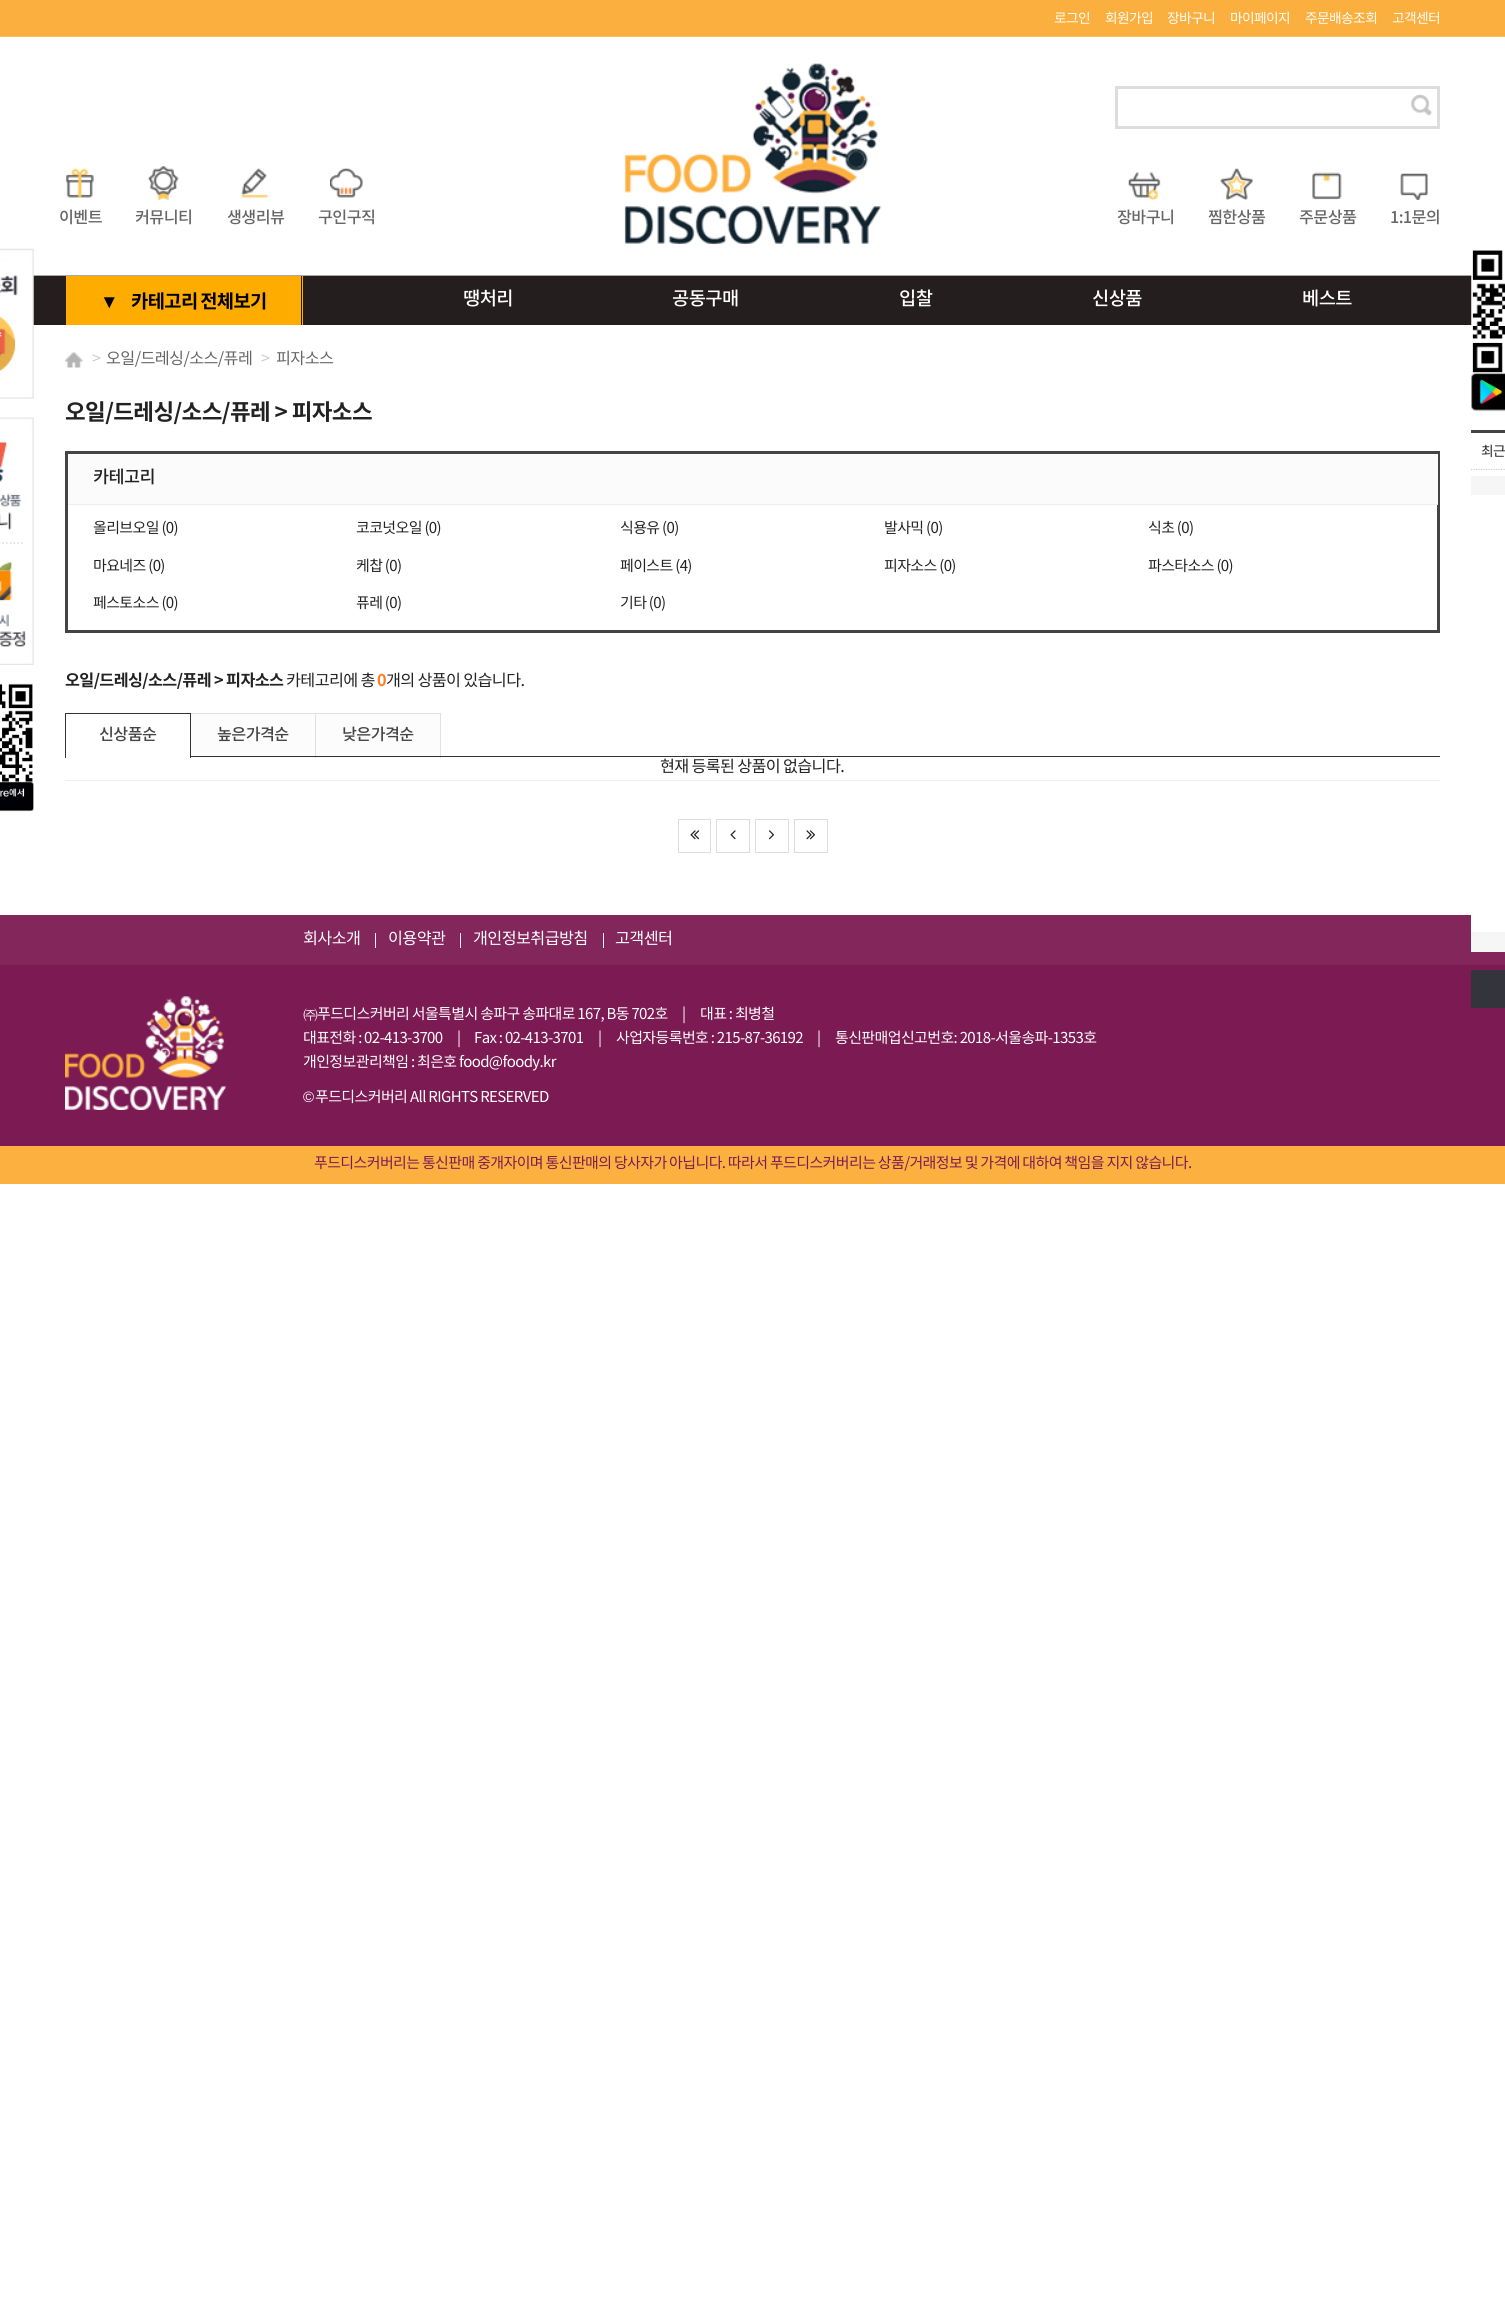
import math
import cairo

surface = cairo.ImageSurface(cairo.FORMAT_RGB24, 1505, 2323)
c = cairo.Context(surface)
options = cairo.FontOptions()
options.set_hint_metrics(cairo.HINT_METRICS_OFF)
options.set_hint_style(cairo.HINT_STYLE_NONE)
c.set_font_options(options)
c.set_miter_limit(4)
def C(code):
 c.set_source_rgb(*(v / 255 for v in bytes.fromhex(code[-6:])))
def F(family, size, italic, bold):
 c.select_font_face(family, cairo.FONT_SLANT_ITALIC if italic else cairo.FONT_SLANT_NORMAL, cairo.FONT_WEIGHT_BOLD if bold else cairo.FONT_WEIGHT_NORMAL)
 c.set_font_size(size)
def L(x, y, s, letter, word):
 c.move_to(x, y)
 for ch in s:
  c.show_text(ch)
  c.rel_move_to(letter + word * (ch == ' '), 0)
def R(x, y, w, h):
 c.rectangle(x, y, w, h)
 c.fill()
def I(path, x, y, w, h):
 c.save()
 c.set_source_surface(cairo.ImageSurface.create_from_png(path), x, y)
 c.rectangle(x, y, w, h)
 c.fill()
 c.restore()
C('ffffff')
c.paint()
I('1.png',0,0,1505,325)
F('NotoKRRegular',13.75,0,0)
C('ffffff')
L(1054,23,'로그인',-.62,0)
L(1105,23,'회원가입',-.62,0)
L(1167,23,'장바구니',-.62,0)
L(1230,23,'마이페이지',-.62,0)
L(1305,23,'주문배송조회',-.62,0)
L(1392,23,'고객센터',-.62,0)
I('2.png',624,63,258,182)
c.rectangle(1116.5,87.5,322,40)
C('dddddd')
c.set_line_width(3)
c.stroke()
I('3.png',1411,94,21,22)
I('4.png',66,168,28,30)
F('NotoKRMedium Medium',16.25,0,0)
C('666666')
L(59,223,'이벤트',-.62,0)
I('5.png',148,166,31,34)
L(135,223,'커뮤니티',-.62,0)
I('6.png',241,168,27,30)
L(227,223,'생생리뷰',-.62,0)
I('7.png',330,168,33,30)
L(318,223,'구인구직',-.62,0)
I('8.png',1128,172,33,28)
L(1117,223,'장바구니',-.62,0)
I('9.png',1220,168,34,32)
L(1208,223,'찜한상품',-.62,0)
I('10.png',1312,172,30,28)
L(1299,223,'주문상품',-.62,0)
I('11.png',1400,173,28,27)
L(1390,223,'1:1문의',-.62,0)
C('ffac00')
R(66,276,237,49)
C('251e1e')
R(301,276,1,49)
F('Liberation Sans',18.75,0,1)
C('000000')
L(100,308,'▼',-.62,0)
F('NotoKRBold',18.75,0,1)
L(131,308,'카테고리 전체보기',-.62,-1)
F('NotoKRMedium Medium',18.75,0,0)
C('ffffff')
L(463,305,'땡처리',-.62,0)
L(672,305,'공동구매',-.62,0)
L(899,305,'입찰',-.62,0)
L(1092,305,'신상품',-.62,0)
L(1302,305,'베스트',-.62,0)
I('12.png',0,248,34,151)
I('13.png',0,417,34,127)
I('14.png',0,543,34,122)
I('15.png',0,683,34,129)
I('16.png',65,352,18,16)
F('NotoKRRegular',16.25,0,0)
C('cccccc')
L(92,364,'>',-.62,0)
C('666666')
L(106,364,'오일/드레싱/소스/퓨레',-.62,0)
C('cccccc')
L(261,364,'>',-.62,0)
C('666666')
L(276,364,'피자소스',-.62,0)
F('NotoKRBold',22.5,0,1)
C('222222')
L(65,420,'오일/드레싱/소스/퓨레 > 피자소스',-.62,0)
c.rectangle(66.5,452.5,1372,179)
C('444444')
c.stroke()
C('fbfbfb')
R(68,454,1370,50)
C('eeeeee')
R(68,504,1370,1)
F('NotoKRMedium Medium',17.5,0,0)
C('222222')
L(93,483,'카테고리',-.62,0)
F('NotoKRRegular',15,0,0)
L(93,533,'올리브오일 (0)',-.62,-.25)
L(356,533,'코코넛오일 (0)',-.62,-.25)
L(620,533,'식용유 (0)',-.62,-.25)
L(884,533,'발사믹 (0)',-.62,-.25)
L(1148,533,'식초 (0)',-.62,-.25)
L(93,571,'마요네즈 (0)',-.62,-.25)
L(356,571,'케찹 (0)',-.62,-.25)
L(620,571,'페이스트 (4)',-.62,-.25)
L(884,571,'피자소스 (0)',-.62,-.25)
L(1148,571,'파스타소스 (0)',-.62,-.25)
L(93,608,'페스토소스 (0)',-.62,-.25)
L(356,608,'퓨레 (0)',-.62,-.25)
L(620,608,'기타 (0)',-.62,-.25)
F('NotoKRBold',16.25,0,1)
L(65,686,'오일/드레싱/소스/퓨레 > 피자소스',-.62,0)
F('NotoKRRegular',16.25,0,0)
L(286,686,'카테고리에 총',-.62,-.25)
F('NotoKRBold',16.25,0,1)
C('ff7d28')
L(377,686,'0',-.62,0)
F('NotoKRRegular',16.25,0,0)
C('222222')
L(386,686,'개의 상품이 있습니다.',-.62,-.25)
C('fcfcfc')
R(191,714,124,44)
c.save()
c.rectangle(65,713,1375,45)
c.clip()
c.rectangle(190.5,713.5,125,45)
C('e1e1e1')
c.set_line_width(1)
c.stroke()
c.restore()
C('333333')
R(65,713,126,1)
R(190,713,1,45)
R(65,713,1,45)
F('NotoKRMedium Medium',16.25,0,0)
C('444444')
L(99,740,'신상품순',-.62,0)
L(217,740,'높은가격순',-.62,0)
C('fcfcfc')
R(316,714,124,44)
c.save()
c.rectangle(65,713,1375,45)
c.clip()
c.rectangle(315.5,713.5,125,45)
C('e1e1e1')
c.set_line_width(1)
c.stroke()
c.restore()
C('444444')
L(342,740,'낮은가격순',-.62,0)
C('333333')
R(191,756,1249,1)
F('NotoKRRegular',16.25,0,0)
C('222222')
L(660,772,'현재 등록된 상품이 없습니다.',-.62,-.25)
C('eeeeee')
R(65,780,1375,1)
c.rectangle(678.5,819.5,32,33)
C('dddddd')
c.set_line_width(1)
c.stroke()
I('17.png',690,830,10,10)
c.rectangle(716.5,819.5,33,33)
c.stroke()
I('18.png',730,830,6,10)
c.rectangle(755.5,819.5,33,33)
c.stroke()
I('19.png',768,830,7,10)
c.rectangle(794.5,819.5,33,33)
c.stroke()
I('20.png',806,830,10,10)
I('21.png',1471,250,34,162)
C('444444')
R(1471,430,34,3)
c.new_path()
c.move_to(1471,469.5)
c.line_to(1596,469.5)
C('cccccc')
c.set_line_width(1.2)
c.set_dash([1.25,1.25])
c.stroke()
F('NotoKRRegular',13.75,0,0)
C('222222')
L(1481,456,'최근',-.62,-.25)
C('83265c')
R(0,915,1505,50)
C('ffffff')
R(1471,470,34,462)
C('f6f6f6')
R(1471,476,34,19)
R(1471,932,34,20)
C('7c1a53')
R(0,965,1505,181)
C('34353c')
R(1471,970,34,38)
F('NotoKRRegular',16.25,0,0)
C('ffffff')
L(303,944,'회사소개',-.62,0)
C('eeeeee')
R(375,933,1,15)
C('ffffff')
L(388,944,'이용약관',-.62,0)
C('eeeeee')
R(460,933,1,15)
C('ffffff')
L(473,944,'개인정보취급방침',-.62,0)
C('eeeeee')
R(603,933,1,15)
C('ffffff')
L(615,944,'고객센터',-.62,0)
I('22.png',65,996,162,114)
F('WenQuanYi Zen Hei Medium',15,0,0)
L(303,1019,'㈜',-.62,0)
F('NotoKRRegular',15,0,0)
L(317,1019,'푸드디스커버리 서울특별시 송파구 송파대로 167, B동 702호',-.62,-.25)
L(682,1019,'|',-.62,0)
L(700,1019,'대표 : 최병철',-.62,-.25)
L(303,1043,'대표전화 :',-.62,-.25)
L(364,1043,'02-413-3700',-.62,0)
L(457,1043,'|',-.62,0)
L(474,1043,'Fax : 02-413-3701',-.62,-.25)
L(598,1043,'|',-.62,0)
L(616,1043,'사업자등록번호 : 215-87-36192',-.62,-.25)
L(817,1043,'|',-.62,0)
L(835,1043,'통신판매업신고번호: 2018-서울송파-1353호',-.62,-.25)
L(303,1067,'개인정보관리책임 : 최은호 food@foody.kr',-.62,-.25)
F('Liberation Sans',15,0,0)
L(303,1102,'©',-.62,0)
F('NotoKRRegular',15,0,0)
L(315,1102,'푸드디스커버리',-.62,0)
L(410,1102,'All RIGHTS RESERVED',-.62,-.25)
C('fcb040')
R(0,1146,1505,38)
C('7c1a53')
L(314,1168,'푸드디스커버리는 통신판매 중개자이며 통신판매의 당사자가 아닙니다. 따라서 푸드디스커버리는 상품/거래정보 및 가격에 대하여 책임을 지지 않습니다.',-.62,-.25)
surface.write_to_png('o.png')
